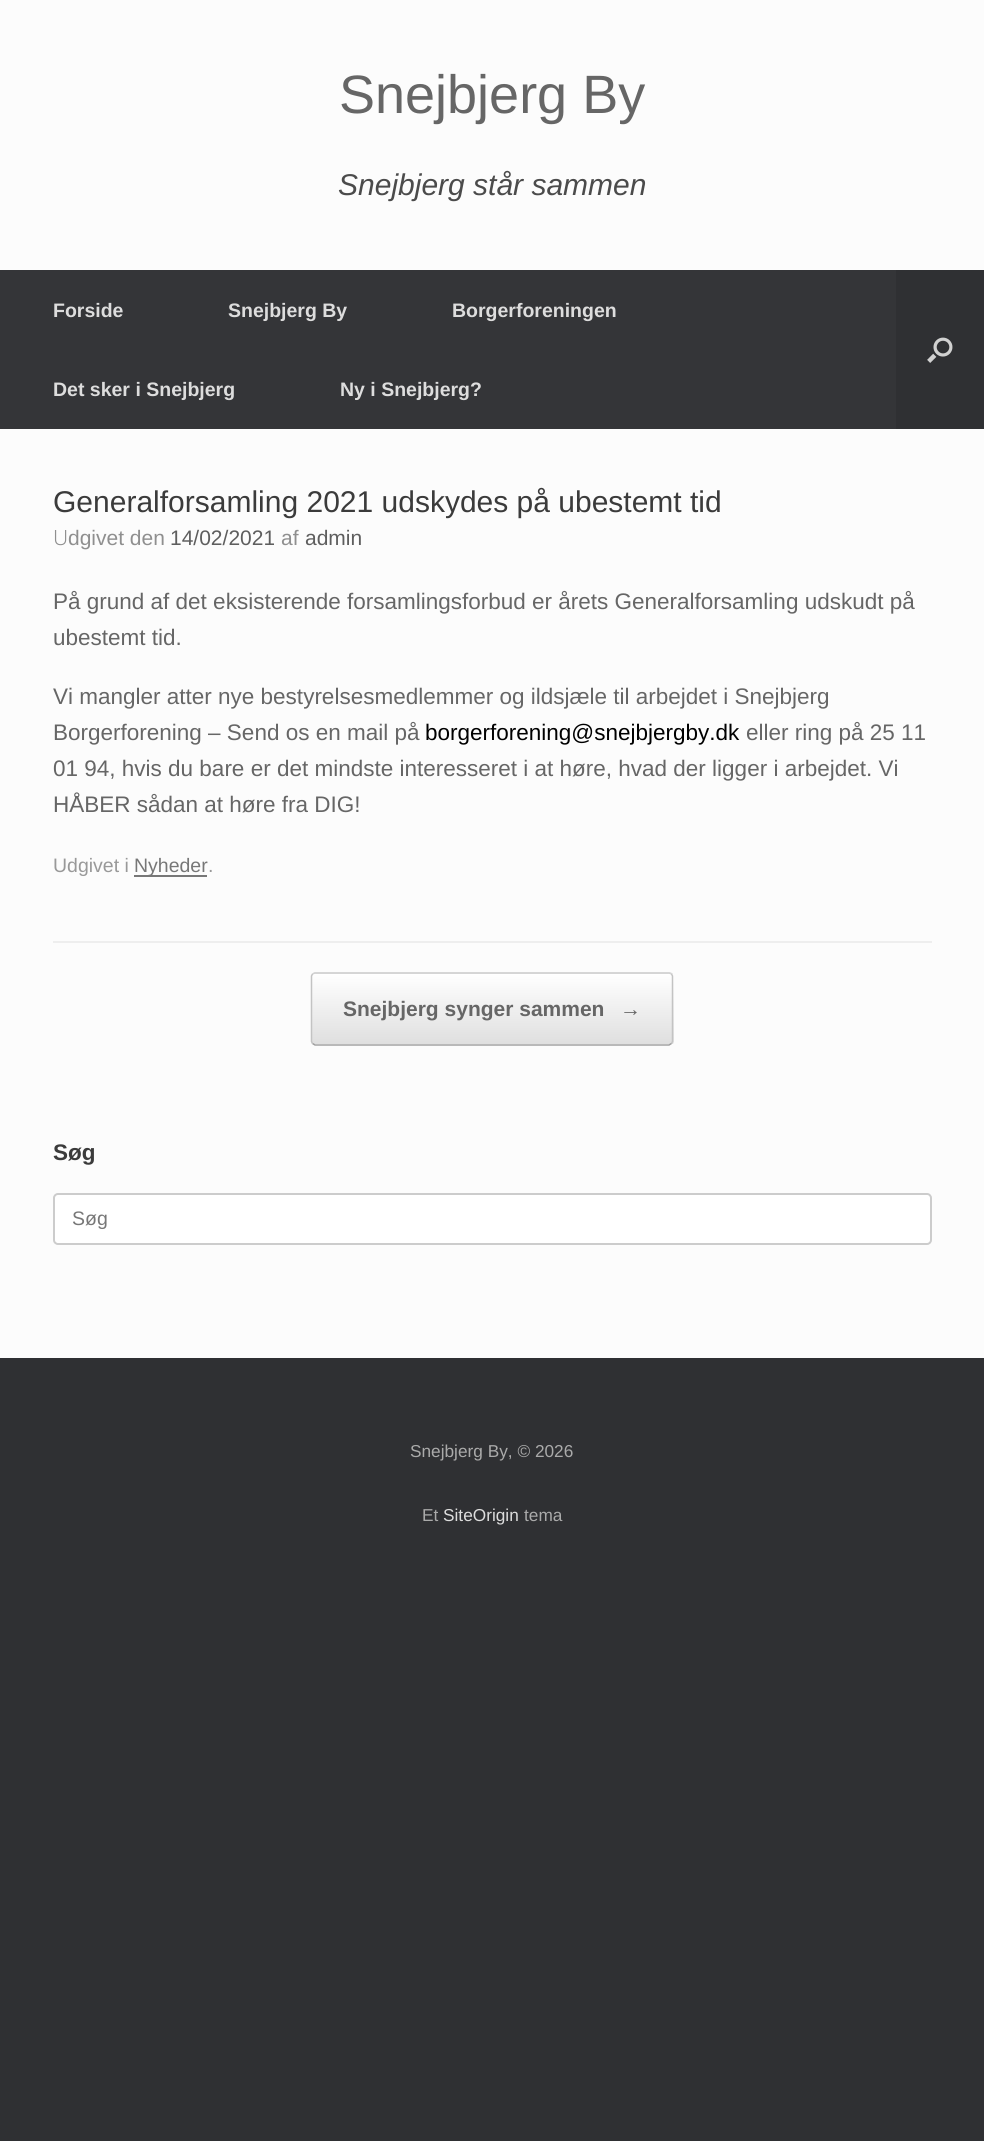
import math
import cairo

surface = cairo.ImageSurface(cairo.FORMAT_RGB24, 984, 2141)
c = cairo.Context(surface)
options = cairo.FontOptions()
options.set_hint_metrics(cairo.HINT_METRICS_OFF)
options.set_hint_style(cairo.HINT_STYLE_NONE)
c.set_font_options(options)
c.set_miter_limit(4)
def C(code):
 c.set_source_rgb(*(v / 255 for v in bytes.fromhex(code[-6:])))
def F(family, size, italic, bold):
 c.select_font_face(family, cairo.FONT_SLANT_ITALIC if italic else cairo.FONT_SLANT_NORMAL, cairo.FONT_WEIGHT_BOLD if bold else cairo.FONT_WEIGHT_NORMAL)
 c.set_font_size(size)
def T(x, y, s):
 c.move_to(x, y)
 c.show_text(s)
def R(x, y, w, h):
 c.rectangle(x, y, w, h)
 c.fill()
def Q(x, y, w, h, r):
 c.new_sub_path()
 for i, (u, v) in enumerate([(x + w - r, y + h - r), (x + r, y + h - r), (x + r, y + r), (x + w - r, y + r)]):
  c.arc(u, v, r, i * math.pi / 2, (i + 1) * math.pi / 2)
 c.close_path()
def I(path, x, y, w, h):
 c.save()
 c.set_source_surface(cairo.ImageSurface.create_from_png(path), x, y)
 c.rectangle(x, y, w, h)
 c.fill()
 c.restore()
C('2f3033')
c.paint()
C('fcfcfc')
R(0,0,984,270)
F('Liberation Sans',54,0,0)
C('666666')
T(339,113,'Snejbjerg By')
F('Liberation Sans',30,1,0)
C('4b4b4b')
T(338,195,'Snejbjerg står sammen')
C('343538')
R(0,270,896,159)
F('Liberation Sans',19.5,0,1)
C('dddddd')
T(53,317,'Forside')
T(228,317,'Snejbjerg By')
T(452,317,'Borgerforeningen')
T(53,396,'Det sker i Snejbjerg')
T(340,396,'Ny i Snejbjerg?')
I('1.png',927,337,26,26)
C('fcfcfc')
R(0,429,984,929)
C('eeeeee')
R(53,941,879,2)
F('Liberation Sans',30,0,0)
C('3b3b3b')
T(53,512,'Generalforsamling 2021 udskydes på ubestemt tid')
F('Noto Sans Light',21,0,0)
C('8f8f8f')
T(53,545,'U')
F('Liberation Sans',21,0,0)
T(68,545,'dgivet den')
C('5e5e5e')
T(170,545,'14/02/2021')
C('8f8f8f')
T(281,545,'af')
C('5e5e5e')
T(305,545,'admin')
F('Liberation Sans',22.5,0,0)
C('666666')
T(53,609,'På grund af det eksisterende forsamlingsforbud er årets Generalforsamling udskudt på')
T(53,645,'ubestemt tid.')
T(53,704,'Vi mangler atter nye bestyrelsesmedlemmer og ildsjæle til arbejdet i Snejbjerg')
T(53,740,'Borgerforening – Send os en mail på')
C('000000')
T(425,740,'borgerforening@snejbjergby.dk')
C('666666')
T(746,740,'eller ring på 25 11')
T(53,776,'01 94, hvis du bare er det mindste interesseret i at høre, hvad der ligger i arbejdet. Vi')
T(53,812,'HÅBER sådan at høre fra DIG!')
F('Liberation Sans',19.5,0,0)
C('999999')
T(53,872,'Udgivet i')
C('777777')
R(134,875,73,2)
T(134,872,'Nyheder')
C('999999')
T(208,872,'.')
c.save()
Q(311,972,363,74,5)
c.clip()
gradient = cairo.LinearGradient(312,974,312,903)
gradient.add_color_stop_rgba(0,0.875,0.875,0.875,1)
gradient.add_color_stop_rgba(1,1,1,1,1)
c.set_source(gradient)
R(311,972,363,2)
gradient = cairo.LinearGradient(312,1044,312,974)
gradient.add_color_stop_rgba(0,0.875,0.875,0.875,1)
gradient.add_color_stop_rgba(1,1,1,1,1)
c.set_source(gradient)
R(311,974,363,70)
gradient = cairo.LinearGradient(312,1115,312,1044)
gradient.add_color_stop_rgba(0,0.875,0.875,0.875,1)
gradient.add_color_stop_rgba(1,1,1,1,1)
c.set_source(gradient)
R(311,1044,363,2)
c.restore()
c.new_path()
c.move_to(312.5,974)
c.line_to(315,973)
c.line_to(669,973)
c.line_to(671.5,974)
C('d2d2d2')
c.set_line_width(1.5)
c.stroke()
c.new_path()
c.move_to(671.5,974)
c.line_to(672.5,976)
c.line_to(672.5,1041.5)
c.line_to(671.5,1043.5)
C('c3c3c3')
c.stroke()
c.new_path()
c.move_to(671.5,1043.5)
c.line_to(669,1045)
c.line_to(315,1045)
c.line_to(312.5,1043.5)
C('9f9f9f')
c.stroke()
c.new_path()
c.move_to(312.5,1043.5)
c.line_to(311.5,1041.5)
c.line_to(311.5,976)
c.line_to(312.5,974)
C('c3c3c3')
c.stroke()
F('Liberation Sans',21,0,1)
C('666666')
T(343,1016,'Snejbjerg synger sammen')
T(620,1016,'→')
F('Liberation Sans',22.5,0,1)
C('3b3b3b')
T(53,1160,'Søg')
C('ffffff')
Q(54,1194,877,50,4)
c.fill_preserve()
C('cccccc')
c.set_line_width(2)
c.stroke()
F('Liberation Sans',19.5,0,0)
C('777777')
T(72,1225,'Søg')
F('Liberation Sans',17.25,0,0)
C('aaaaaa')
T(410,1457,'Snejbjerg By, © 2026')
T(422,1521,'Et')
C('dddddd')
T(443,1521,'SiteOrigin')
C('aaaaaa')
T(524,1521,'tema')
surface.write_to_png('o.png')
